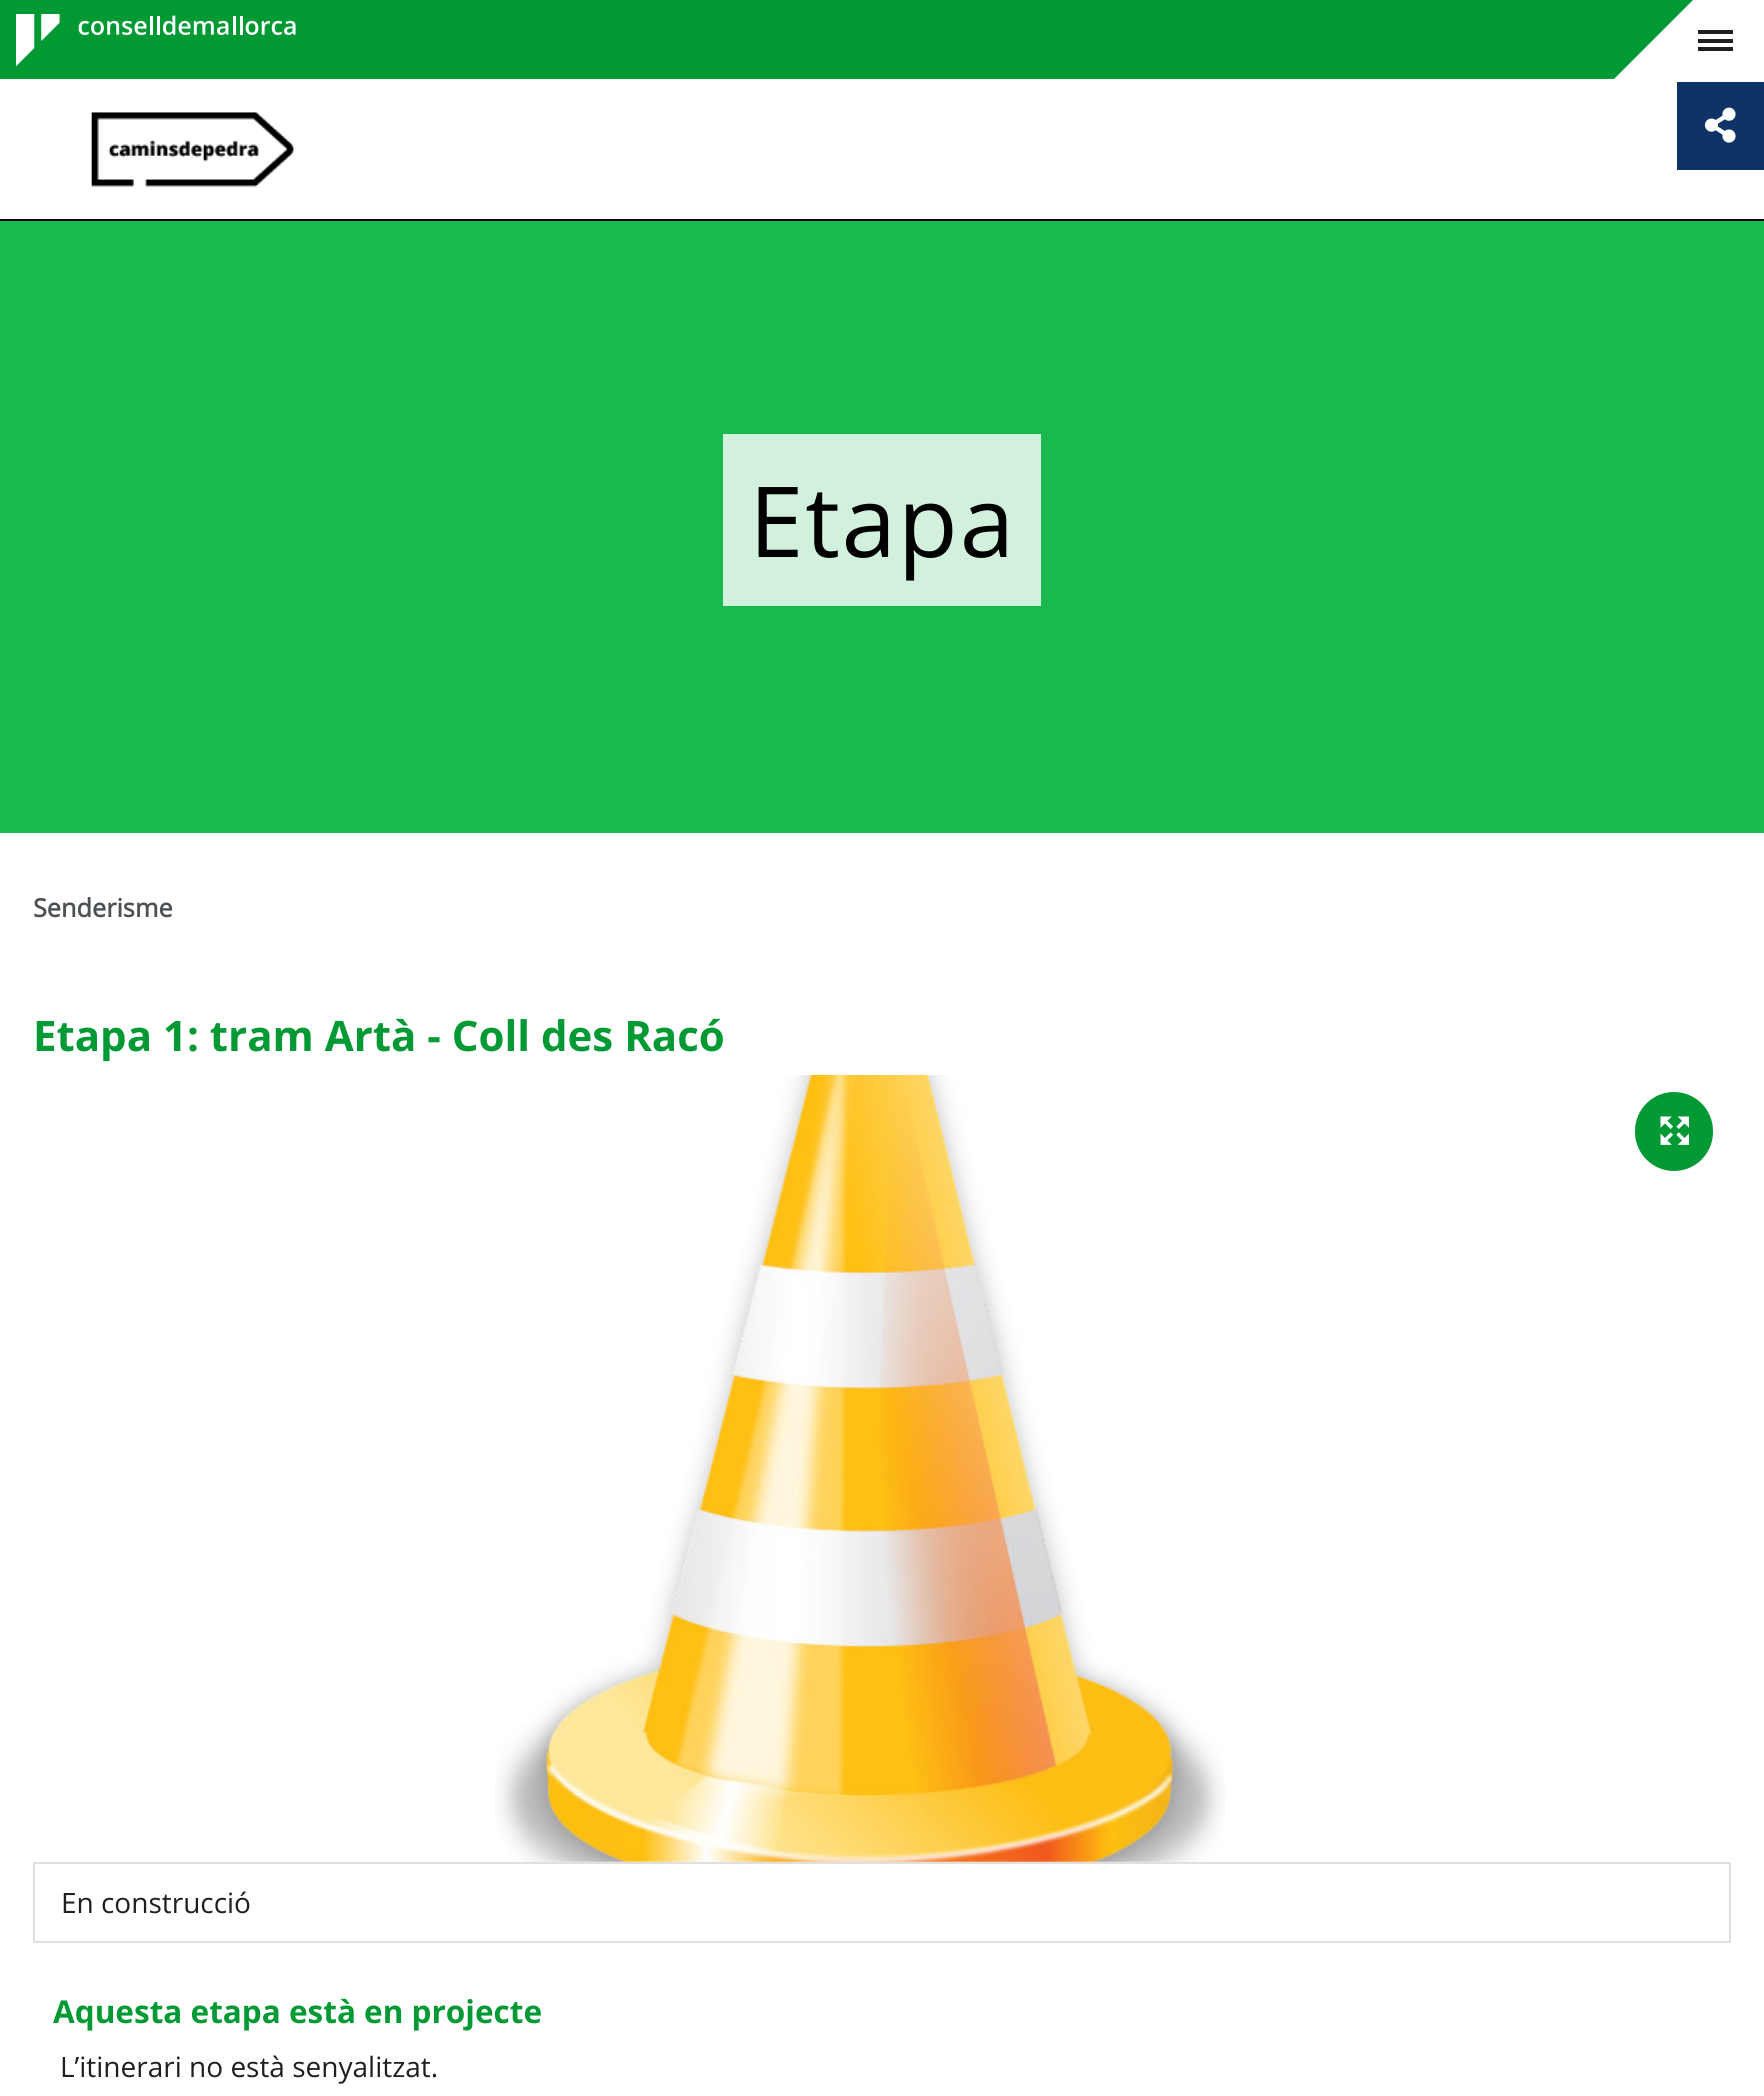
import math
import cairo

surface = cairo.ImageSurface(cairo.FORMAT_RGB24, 1764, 2096)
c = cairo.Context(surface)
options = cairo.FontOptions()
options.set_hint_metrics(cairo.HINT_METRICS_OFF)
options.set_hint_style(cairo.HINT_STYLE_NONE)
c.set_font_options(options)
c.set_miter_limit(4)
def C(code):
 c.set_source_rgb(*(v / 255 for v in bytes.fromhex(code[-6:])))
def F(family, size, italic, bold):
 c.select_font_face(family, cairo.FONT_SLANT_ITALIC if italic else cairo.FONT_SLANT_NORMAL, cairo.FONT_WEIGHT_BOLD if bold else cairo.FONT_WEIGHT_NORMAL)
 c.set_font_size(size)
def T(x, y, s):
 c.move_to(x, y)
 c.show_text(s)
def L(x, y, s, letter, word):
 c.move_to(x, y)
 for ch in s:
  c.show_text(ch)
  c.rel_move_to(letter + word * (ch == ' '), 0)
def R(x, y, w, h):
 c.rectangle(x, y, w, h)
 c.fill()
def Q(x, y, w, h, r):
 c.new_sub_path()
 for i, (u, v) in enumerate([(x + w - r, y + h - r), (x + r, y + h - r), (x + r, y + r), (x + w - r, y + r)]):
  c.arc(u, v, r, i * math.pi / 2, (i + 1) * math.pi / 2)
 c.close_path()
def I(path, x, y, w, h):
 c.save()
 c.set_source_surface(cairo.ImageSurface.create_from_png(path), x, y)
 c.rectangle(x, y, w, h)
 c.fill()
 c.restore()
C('ffffff')
c.paint()
C('009933')
R(0,0,1693,79)
I('1.png',16,14,280,53)
C('ffffff')
c.new_path()
c.move_to(1693,0)
c.line_to(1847,0)
c.line_to(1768,79)
c.line_to(1614,79)
c.close_path()
c.fill()
C('1f1f1f')
R(1698,39,35,4)
R(1698,30,35,4)
R(1698,47,35,4)
C('0e3366')
R(1677,82,87,88)
I('2.png',1704,107,32,36)
C('000000')
R(0,219,1764,2)
I('3.png',91,112,203,75)
C('19b94f')
R(0,221,1764,612)
C('d1f1dc')
R(723,434,318,172)
F('Open Sans',98,0,0)
C('000000')
L(749,557,'Etapa',1.75,0)
F('Open Sans',25.25,0,1)
C('4d5154')
T(33,917,'Senderisme')
F('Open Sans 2',42,0,1)
C('009933')
T(33,1051,'Etapa 1: tram Artà - Coll des Racó')
I('4.png',495,1075,730,787)
Q(1635,1092,78,79,39)
c.fill()
I('5.png',1660,1116,29,29)
c.rectangle(34,1863,1696,79)
C('e0e0e0')
c.stroke()
F('Open Sans',28,0,0)
C('1f1f1f')
T(61,1913,'En construcció')
F('Open Sans 2',31.5,0,1)
C('009933')
T(53,2023,'Aquesta etapa està en projecte')
F('Open Sans',28,0,0)
C('1f1f1f')
T(60,2077,'L’itinerari no està senyalitzat.')
surface.write_to_png('o.png')
